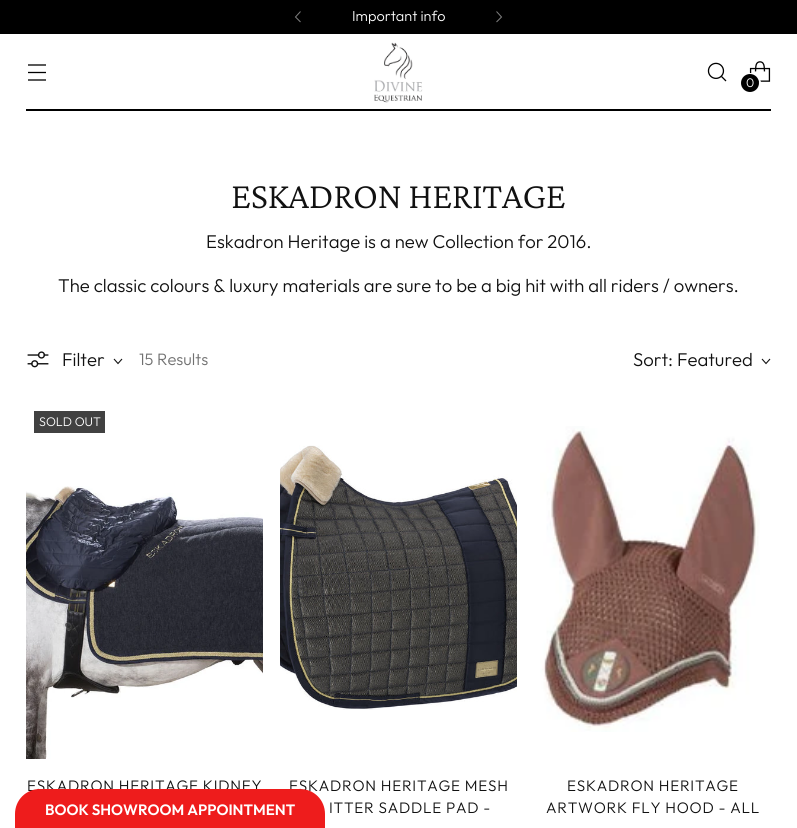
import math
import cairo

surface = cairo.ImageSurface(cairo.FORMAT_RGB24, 797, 828)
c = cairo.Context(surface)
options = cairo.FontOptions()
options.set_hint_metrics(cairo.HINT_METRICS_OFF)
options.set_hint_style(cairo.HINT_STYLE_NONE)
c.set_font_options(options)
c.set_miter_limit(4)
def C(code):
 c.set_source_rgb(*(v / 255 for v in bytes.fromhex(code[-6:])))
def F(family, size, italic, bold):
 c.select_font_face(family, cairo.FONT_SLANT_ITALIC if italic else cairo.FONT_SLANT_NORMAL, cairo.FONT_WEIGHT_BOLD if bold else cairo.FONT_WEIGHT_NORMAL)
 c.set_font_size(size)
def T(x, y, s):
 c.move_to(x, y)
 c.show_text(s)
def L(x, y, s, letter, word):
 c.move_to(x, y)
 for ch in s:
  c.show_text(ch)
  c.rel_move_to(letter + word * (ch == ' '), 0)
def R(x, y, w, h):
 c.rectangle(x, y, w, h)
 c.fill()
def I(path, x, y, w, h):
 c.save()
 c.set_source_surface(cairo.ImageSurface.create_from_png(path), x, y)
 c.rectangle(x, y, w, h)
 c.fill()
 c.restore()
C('ffffff')
c.paint()
C('000000')
R(0,0,797,34)
F('Outfit Light',14.5,0,0)
C('ffffff')
T(352,21,'Important info')
c.new_path()
c.move_to(300.5,11.5)
c.line_to(295.5,17)
c.line_to(300.5,22)
C('808080')
c.set_line_width(1)
c.stroke()
c.new_path()
c.move_to(496.5,22)
c.line_to(501.5,17)
c.line_to(496.5,11.5)
c.stroke()
C('000000')
R(26,109,745,2)
c.new_path()
c.move_to(28,72.5)
c.line_to(46,72.5)
c.move_to(28,65)
c.line_to(46,65)
c.move_to(28,80)
c.line_to(46,80)
c.set_line_width(1.3)
c.stroke()
I('1.png',374,42,49,61)
I('2.png',707,62,20,20)
I('3.png',749,61,22,21)
c.arc(750.5,83.5,9.5,0,2 * math.pi)
C('ffffff')
c.set_line_width(2)
c.stroke()
C('000000')
c.arc(750,83,9,0,2 * math.pi)
c.fill()
F('Outfit Light',12.5,0,0)
C('ffffff')
T(746,87,'0')
F('Crimson Pro Light',37.5,0,0)
C('111111')
L(231,208,'ESKADRON HERITAGE',-.4,0)
F('Outfit Light',18.5,0,0)
T(206,248,'Eskadron Heritage is a new Collection for 2016.')
T(58,292,'The classic colours & luxury materials are sure to be a big hit with all riders / owners.')
I('4.png',27,351,22,17)
T(62,366,'Filter')
c.new_path()
c.move_to(114,359)
c.line_to(118,363.5)
c.line_to(122,359)
c.set_line_width(1.1)
c.stroke()
F('Outfit Light',16.5,0,0)
C('707070')
T(139,365,'15 Results')
F('Outfit Light',18.5,0,0)
C('111111')
T(633,366,'Sort: Featured')
c.new_path()
c.move_to(762,359)
c.line_to(766,363.5)
c.line_to(770,359)
c.stroke()
C('414141')
R(34,411,71,22)
F('Outfit Light',12.5,0,0)
C('ffffff')
T(39,426,'SOLD OUT')
I('5.png',26,486,237,273)
F('Outfit Light',15.25,0,0)
C('111111')
L(27,791,'ESKADRON HERITAGE KIDNEY',.75,0)
I('6.png',280,445,237,265)
L(289,791,'ESKADRON HERITAGE MESH',.75,0)
L(329,813,'ITTER SADDLE PAD -',.75,0)
I('7.png',540,426,220,306)
L(567,791,'ESKADRON HERITAGE',.75,0)
L(546,813,'ARTWORK FLY HOOD - ALL',.75,0)
C('ee1c1c')
c.new_path()
c.move_to(40,789)
c.line_to(300,789)
c.curve_to(314,789,325,800,325,814)
c.line_to(325,828)
c.line_to(15,828)
c.line_to(15,814)
c.curve_to(15,800,26,789,40,789)
c.close_path()
c.fill()
F('Outfit SemiBold',15,0,0)
C('ffffff')
T(45,815,'BOOK SHOWROOM APPOINTMENT')
surface.write_to_png('o.png')
